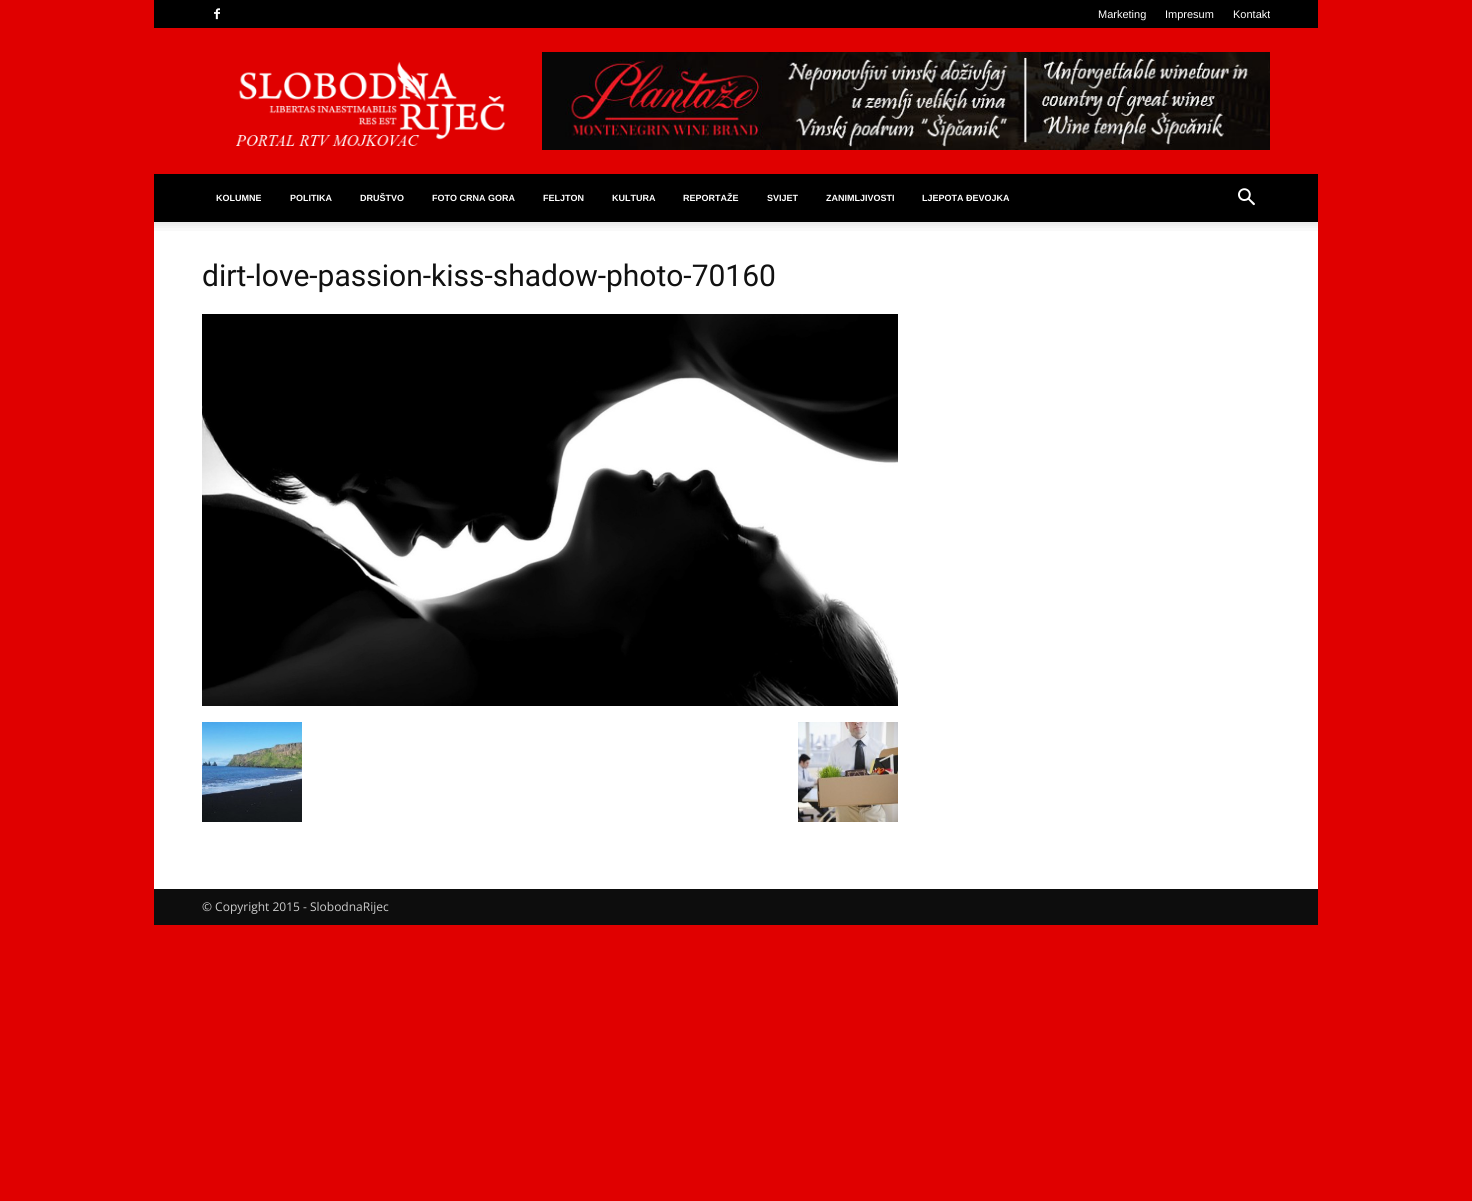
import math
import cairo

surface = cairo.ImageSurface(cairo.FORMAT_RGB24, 1472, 1201)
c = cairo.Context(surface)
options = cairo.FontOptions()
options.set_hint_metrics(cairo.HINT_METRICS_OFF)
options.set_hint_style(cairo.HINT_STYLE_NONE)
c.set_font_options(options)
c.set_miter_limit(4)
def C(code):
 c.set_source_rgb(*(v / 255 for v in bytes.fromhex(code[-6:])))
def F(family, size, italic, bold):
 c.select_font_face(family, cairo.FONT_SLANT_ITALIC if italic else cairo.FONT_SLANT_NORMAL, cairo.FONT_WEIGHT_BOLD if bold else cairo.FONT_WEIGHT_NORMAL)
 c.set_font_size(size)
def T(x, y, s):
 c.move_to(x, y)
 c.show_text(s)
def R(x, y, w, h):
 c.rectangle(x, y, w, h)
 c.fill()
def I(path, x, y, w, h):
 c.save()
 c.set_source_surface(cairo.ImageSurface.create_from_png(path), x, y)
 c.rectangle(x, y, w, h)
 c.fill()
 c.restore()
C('e00000')
c.paint()
C('000000')
R(154,0,1164,28)
I('1.png',214,8,6,12)
F('Liberation Sans',11,0,0)
C('ffffff')
T(1098,18,'Marketing')
T(1165,18,'Impresum')
T(1233,18,'Kontakt')
I('2.png',236,61,270,85)
I('3.png',542,52,728,98)
C('000000')
R(154,174,1164,48)
F('Liberation Sans',9,0,1)
C('ffffff')
T(216,201,'KOLUMNE')
T(290,201,'POLITIKA')
T(360,201,'DRUŠTVO')
T(432,201,'FOTO CRNA GORA')
T(543,201,'FELJTON')
T(612,201,'KULTURA')
T(683,201,'REPORTAŽE')
T(767,201,'SVIJET')
T(826,201,'ZANIMLJIVOSTI')
T(922,201,'LJEPOTA ĐEVOJKA')
I('4.png',1238,188,17,18)
R(154,222,1164,667)
I('5.png',154,222,1164,9)
F('Roboto',30,0,0)
C('111111')
T(202,286,'dirt-love-passion-kiss-shadow-photo-70160')
I('6.png',202,314,696,392)
I('7.png',202,722,100,100)
I('8.png',798,722,100,100)
C('0d0d0d')
R(154,889,1164,36)
F('Open Sans',12,0,0)
C('cccccc')
T(202,911,'© Copyright 2015 - SlobodnaRijec')
surface.write_to_png('o.png')
